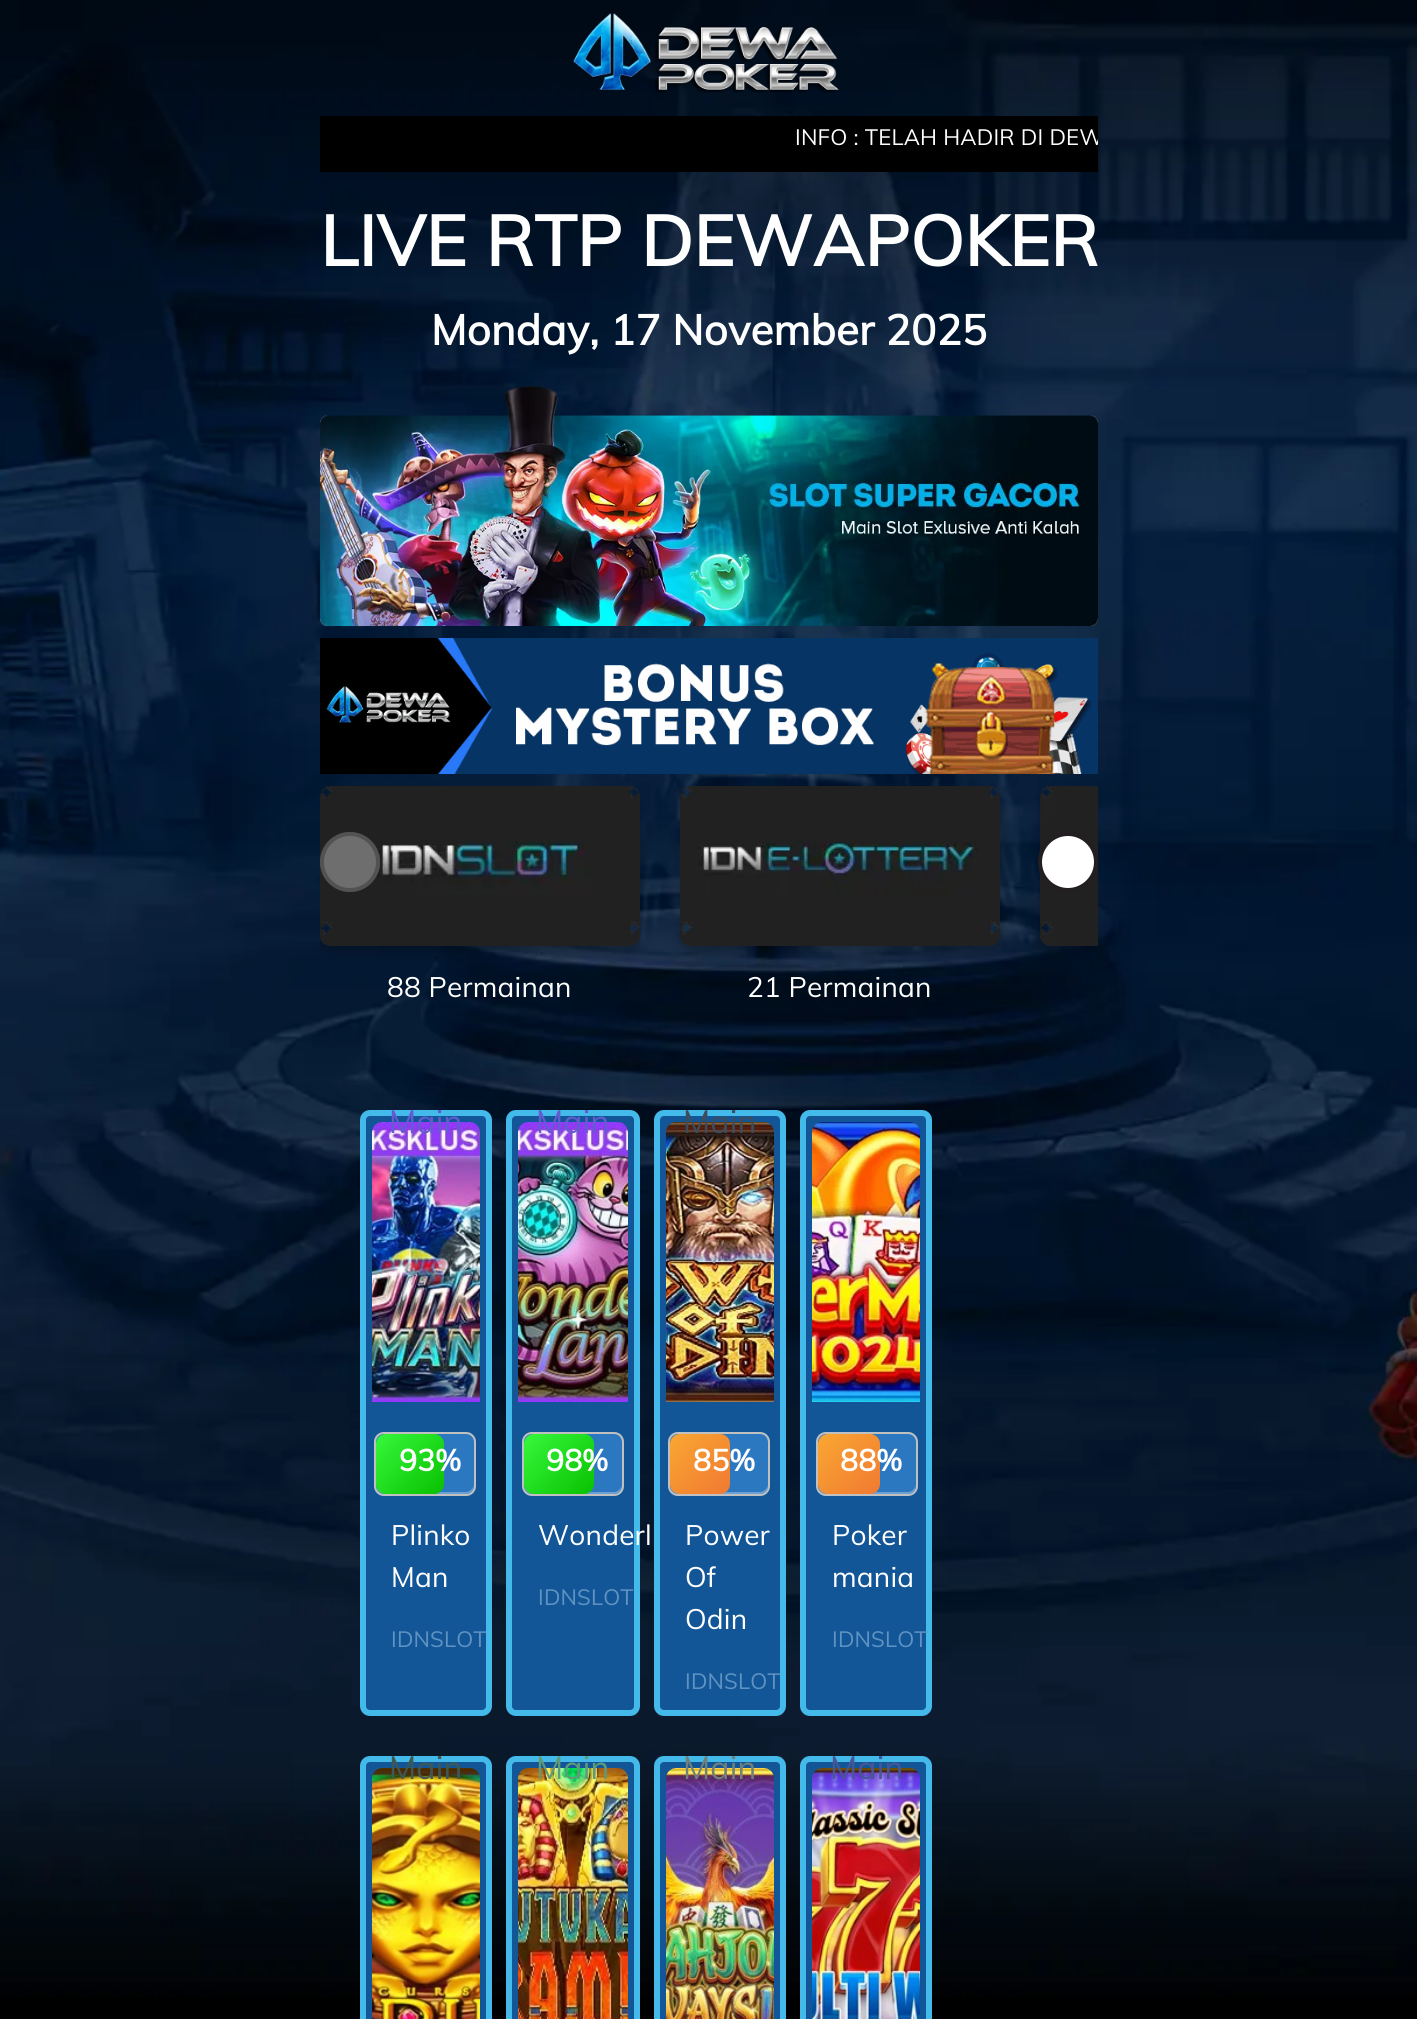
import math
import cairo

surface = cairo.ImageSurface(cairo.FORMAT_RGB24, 1417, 2019)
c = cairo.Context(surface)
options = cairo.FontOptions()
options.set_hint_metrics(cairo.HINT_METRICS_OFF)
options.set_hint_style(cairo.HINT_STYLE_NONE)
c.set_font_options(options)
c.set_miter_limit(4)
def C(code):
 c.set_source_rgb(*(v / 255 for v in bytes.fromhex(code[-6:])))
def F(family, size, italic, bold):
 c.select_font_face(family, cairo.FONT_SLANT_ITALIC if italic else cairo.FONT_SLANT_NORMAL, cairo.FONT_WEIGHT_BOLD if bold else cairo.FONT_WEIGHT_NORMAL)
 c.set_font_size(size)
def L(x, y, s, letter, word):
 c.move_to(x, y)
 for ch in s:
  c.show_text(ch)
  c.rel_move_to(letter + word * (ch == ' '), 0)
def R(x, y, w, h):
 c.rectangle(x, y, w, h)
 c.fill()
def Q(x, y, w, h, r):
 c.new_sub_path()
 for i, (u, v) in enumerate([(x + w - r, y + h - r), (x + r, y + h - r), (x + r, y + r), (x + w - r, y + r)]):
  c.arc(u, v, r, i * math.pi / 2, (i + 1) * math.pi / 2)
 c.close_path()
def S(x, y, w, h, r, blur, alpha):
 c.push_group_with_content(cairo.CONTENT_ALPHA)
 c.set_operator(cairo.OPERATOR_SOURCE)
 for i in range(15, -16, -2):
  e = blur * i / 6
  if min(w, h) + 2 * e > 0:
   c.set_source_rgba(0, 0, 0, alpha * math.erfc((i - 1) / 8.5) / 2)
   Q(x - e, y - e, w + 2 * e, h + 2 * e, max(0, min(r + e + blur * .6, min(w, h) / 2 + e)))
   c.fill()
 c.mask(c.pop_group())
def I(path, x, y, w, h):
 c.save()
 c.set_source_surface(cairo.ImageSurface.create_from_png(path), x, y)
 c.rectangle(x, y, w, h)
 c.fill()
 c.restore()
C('000000')
c.paint()
I('1.png',0,0,1417,1997)
I('2.png',573,13,266,80)
C('000000')
R(320,116,778,56)
c.save()
c.rectangle(320,116,778,42)
c.clip()
F('Muli',22.1,0,0)
C('ffffff')
L(795,145,'INFO : TELAH HADIR DI DEW',.2,0)
c.restore()
F('Muli',70,0,1)
C('ffffff')
L(320,266,'LIVE RTP DEWAPOKER',.2,0)
F('Muli',42,0,1)
L(431,345,'Monday, 17 November 2025',.2,0)
I('3.png',320,386,778,240)
I('4.png',320,638,778,136)
c.save()
c.rectangle(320,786,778,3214)
c.clip()
c.set_fill_rule(cairo.FILL_RULE_EVEN_ODD)
c.new_path()
c.move_to(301,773)
c.line_to(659,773)
c.line_to(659,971)
c.line_to(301,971)
c.close_path()
c.move_to(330,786)
c.line_to(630,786)
c.curve_to(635.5,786,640,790.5,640,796)
c.line_to(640,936)
c.curve_to(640,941.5,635.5,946,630,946)
c.line_to(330,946)
c.curve_to(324.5,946,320,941.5,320,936)
c.line_to(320,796)
c.curve_to(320,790.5,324.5,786,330,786)
c.close_path()
c.clip()
C('000000')
S(320,792,320,160,10,6,.23)
c.restore()
I('6.png',320,786,320,160)
c.set_source_rgba(1,1,1,0.35)
c.arc(350,862,30,0,2 * math.pi)
c.fill()
c.arc(350,862,28,0,2 * math.pi)
c.set_source_rgba(0.133,0.118,0.129,0.35)
c.set_line_width(4)
c.stroke()
c.save()
c.rectangle(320,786,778,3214)
c.clip()
c.set_fill_rule(cairo.FILL_RULE_EVEN_ODD)
c.new_path()
c.move_to(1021,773)
c.line_to(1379,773)
c.line_to(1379,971)
c.line_to(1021,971)
c.close_path()
c.move_to(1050,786)
c.line_to(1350,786)
c.curve_to(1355.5,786,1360,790.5,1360,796)
c.line_to(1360,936)
c.curve_to(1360,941.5,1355.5,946,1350,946)
c.line_to(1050,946)
c.curve_to(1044.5,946,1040,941.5,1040,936)
c.line_to(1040,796)
c.curve_to(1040,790.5,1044.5,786,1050,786)
c.close_path()
c.clip()
C('000000')
S(1040,792,320,160,10,6,.23)
c.restore()
I('5.png',1040,786,58,160)
C('ffffff')
c.arc(1068,862,28,0,2 * math.pi)
c.fill_preserve()
C('221e21')
c.stroke()
F('Muli',28,0,0)
C('ffffff')
L(387,997,'88 Permainan',.2,0)
c.save()
c.rectangle(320,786,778,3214)
c.clip()
c.set_fill_rule(cairo.FILL_RULE_EVEN_ODD)
c.new_path()
c.move_to(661,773)
c.line_to(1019,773)
c.line_to(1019,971)
c.line_to(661,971)
c.close_path()
c.move_to(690,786)
c.line_to(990,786)
c.curve_to(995.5,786,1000,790.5,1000,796)
c.line_to(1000,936)
c.curve_to(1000,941.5,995.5,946,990,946)
c.line_to(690,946)
c.curve_to(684.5,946,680,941.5,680,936)
c.line_to(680,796)
c.curve_to(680,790.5,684.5,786,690,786)
c.close_path()
c.clip()
C('000000')
S(680,792,320,160,10,6,.23)
c.restore()
I('7.png',680,786,320,160)
L(747,997,'21 Permainan',.2,0)
C('125697')
Q(363,1113,126,600,7)
c.fill_preserve()
C('43baea')
c.set_line_width(6)
c.stroke()
I('8.png',372,1122,108,280)
F('Muli',32,0,0)
C('625bd2')
L(389,1133,'Main',.2,0)
C('2b78c1')
Q(374,1432,102,64,10)
c.fill()
C('6ba1d4')
c.new_path()
c.move_to(376,1484)
c.curve_to(376,1497,388,1494,398,1494)
c.line_to(452,1494)
c.curve_to(462,1494,474,1497,474,1484)
c.curve_to(474,1488,470,1492,466,1492)
c.line_to(384,1492)
c.curve_to(380,1492,376,1488,376,1484)
c.close_path()
c.fill()
Q(375,1433,100,62,9)
C('c0c0c0')
c.set_line_width(2)
c.stroke()
gradient = cairo.LinearGradient(378,1432,442,1496)
gradient.add_color_stop_rgba(0,0.212,0.973,0.235,1)
gradient.add_color_stop_rgba(1,0.035,0.753,0,1)
c.set_source(gradient)
Q(376,1434,68,60,10)
c.fill()
F('Muli',30,0,1)
C('ffffff')
L(399,1471,'93%',.2,0)
F('Muli',28,0,0)
L(391,1545,'Plinko',.2,0)
L(391,1587,'Man',.2,0)
F('Muli',22,0,0)
C('6093c2')
L(391,1647,'IDNSLOT',.2,0)
C('125697')
Q(509,1113,128,600,7)
c.fill_preserve()
C('43baea')
c.set_line_width(6)
c.stroke()
I('9.png',518,1122,110,280)
F('Muli',32,0,0)
C('625bd2')
L(536,1133,'Main',.2,0)
C('2b78c1')
Q(522,1432,102,64,10)
c.fill()
C('6ba1d4')
c.new_path()
c.move_to(524,1484)
c.curve_to(524,1497,536,1494,546,1494)
c.line_to(600,1494)
c.curve_to(610,1494,622,1497,622,1484)
c.curve_to(622,1488,618,1492,614,1492)
c.line_to(532,1492)
c.curve_to(528,1492,524,1488,524,1484)
c.close_path()
c.fill()
Q(523,1433,100,62,9)
C('c0c0c0')
c.set_line_width(2)
c.stroke()
gradient = cairo.LinearGradient(527,1432,592,1497)
gradient.add_color_stop_rgba(0,0.212,0.973,0.235,1)
gradient.add_color_stop_rgba(1,0.035,0.753,0,1)
c.set_source(gradient)
Q(524,1434,70,60,10)
c.fill()
F('Muli',30,0,1)
C('ffffff')
L(546,1471,'98%',.2,0)
F('Muli',28,0,0)
L(538,1545,'Wonderl',.2,0)
F('Muli',22,0,0)
C('6093c2')
L(538,1605,'IDNSLOT',.2,0)
C('125697')
Q(657,1113,126,600,7)
c.fill_preserve()
C('43baea')
c.set_line_width(6)
c.stroke()
I('10.png',666,1122,108,280)
F('Muli',32,0,0)
C('3d4c5d')
L(683,1133,'Main',.2,0)
C('2b78c1')
Q(668,1432,102,64,10)
c.fill()
C('6ba1d4')
c.new_path()
c.move_to(670,1484)
c.curve_to(670,1497,682,1494,692,1494)
c.line_to(746,1494)
c.curve_to(756,1494,768,1497,768,1484)
c.curve_to(768,1488,764,1492,760,1492)
c.line_to(678,1492)
c.curve_to(674,1492,670,1488,670,1484)
c.close_path()
c.fill()
Q(669,1433,100,62,9)
C('c0c0c0')
c.set_line_width(2)
c.stroke()
gradient = cairo.LinearGradient(670,1434,730,1494)
gradient.add_color_stop_rgba(0,0.976,0.655,0.196,1)
gradient.add_color_stop_rgba(1,0.945,0.475,0.196,1)
c.set_source(gradient)
Q(670,1434,60,60,10)
c.fill()
F('Muli',30,0,1)
C('ffffff')
L(693,1471,'85%',.2,0)
F('Muli',28,0,0)
L(685,1545,'Power',.2,0)
L(685,1587,'Of',.2,0)
L(685,1629,'Odin',.2,0)
F('Muli',22,0,0)
C('6093c2')
L(685,1689,'IDNSLOT',.2,0)
C('125697')
Q(803,1113,126,600,7)
c.fill_preserve()
C('43baea')
c.set_line_width(6)
c.stroke()
I('11.png',812,1122,108,280)
C('2b78c1')
Q(816,1432,102,64,10)
c.fill()
C('6ba1d4')
c.new_path()
c.move_to(818,1484)
c.curve_to(818,1497,830,1494,840,1494)
c.line_to(894,1494)
c.curve_to(904,1494,916,1497,916,1484)
c.curve_to(916,1488,912,1492,908,1492)
c.line_to(826,1492)
c.curve_to(822,1492,818,1488,818,1484)
c.close_path()
c.fill()
Q(817,1433,100,62,9)
C('c0c0c0')
c.set_line_width(2)
c.stroke()
gradient = cairo.LinearGradient(819,1434,880,1495)
gradient.add_color_stop_rgba(0,0.976,0.655,0.196,1)
gradient.add_color_stop_rgba(1,0.945,0.475,0.196,1)
c.set_source(gradient)
Q(818,1434,62,60,10)
c.fill()
F('Muli',30,0,1)
C('ffffff')
L(840,1471,'88%',.2,0)
F('Muli',28,0,0)
L(832,1545,'Poker',.2,0)
L(832,1587,'mania',.2,0)
F('Muli',22,0,0)
C('6093c2')
L(832,1647,'IDNSLOT',.2,0)
C('125697')
Q(363,1759,126,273,7)
c.fill_preserve()
C('43baea')
c.set_line_width(6)
c.stroke()
I('12.png',372,1768,108,251)
F('Muli',32,0,0)
C('405853')
L(389,1779,'Main',.2,0)
C('125697')
Q(509,1759,128,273,7)
c.fill_preserve()
C('43baea')
c.stroke()
I('13.png',518,1768,110,251)
C('5d9b79')
L(536,1779,'Main',.2,0)
C('125697')
Q(657,1759,126,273,7)
c.fill_preserve()
C('43baea')
c.stroke()
I('14.png',666,1768,108,251)
C('70807a')
L(683,1779,'Main',.2,0)
C('125697')
Q(803,1759,126,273,7)
c.fill_preserve()
C('43baea')
c.stroke()
I('15.png',812,1768,108,251)
C('465697')
L(830,1779,'Main',.2,0)
surface.write_to_png('o.png')
